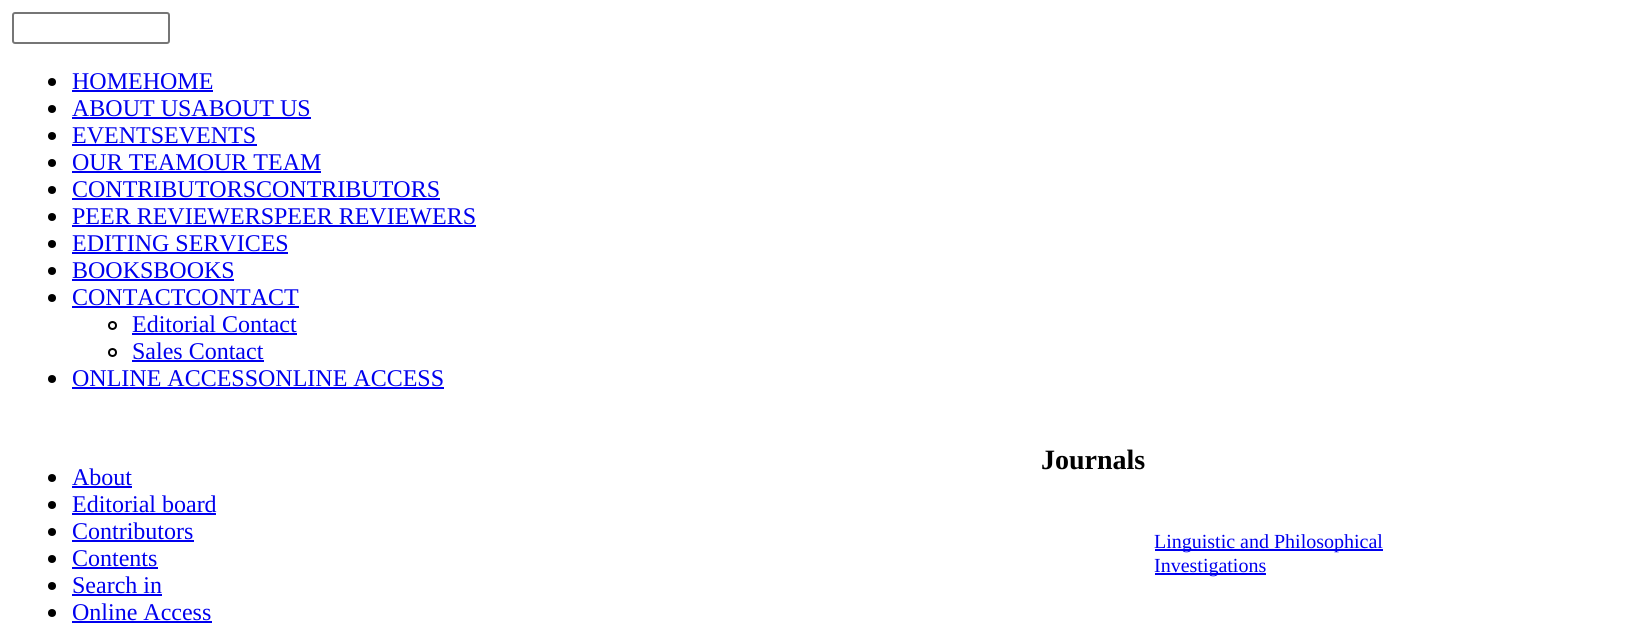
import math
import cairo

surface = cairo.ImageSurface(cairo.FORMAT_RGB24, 1627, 628)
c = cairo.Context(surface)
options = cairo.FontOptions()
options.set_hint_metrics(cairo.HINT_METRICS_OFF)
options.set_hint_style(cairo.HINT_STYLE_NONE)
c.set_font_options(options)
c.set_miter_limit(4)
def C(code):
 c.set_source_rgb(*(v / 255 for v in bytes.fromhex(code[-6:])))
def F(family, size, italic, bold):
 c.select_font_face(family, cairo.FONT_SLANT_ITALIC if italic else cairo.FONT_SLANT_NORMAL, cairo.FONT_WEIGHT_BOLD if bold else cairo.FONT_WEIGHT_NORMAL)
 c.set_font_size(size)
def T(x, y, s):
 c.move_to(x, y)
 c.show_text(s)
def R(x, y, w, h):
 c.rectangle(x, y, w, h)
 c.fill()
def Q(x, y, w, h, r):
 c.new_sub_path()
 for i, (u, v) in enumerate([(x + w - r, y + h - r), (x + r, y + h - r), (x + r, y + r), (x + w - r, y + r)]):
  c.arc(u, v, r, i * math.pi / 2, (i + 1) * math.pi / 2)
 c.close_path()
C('ffffff')
c.paint()
Q(13,13,156,30,2)
C('767676')
c.stroke()
C('000000')
c.arc(52,82,4,0,2 * math.pi)
c.fill()
F('Liberation Serif',24,0,0)
C('0000ee')
T(72,89,'HOMEHOME')
R(72,90,141,2)
C('000000')
c.new_path()
c.arc(52,109,4,0,2 * math.pi)
c.fill()
C('0000ee')
T(72,116,'ABOUT USABOUT US')
R(72,117,239,2)
C('000000')
c.new_path()
c.arc(52,136,4,0,2 * math.pi)
c.fill()
C('0000ee')
T(72,143,'EVENTSEVENTS')
R(72,144,185,2)
C('000000')
c.new_path()
c.arc(52,163,4,0,2 * math.pi)
c.fill()
C('0000ee')
T(72,170,'OUR TEAMOUR TEAM')
R(72,171,249,2)
C('000000')
c.new_path()
c.arc(52,190,4,0,2 * math.pi)
c.fill()
C('0000ee')
T(72,197,'CONTRIBUTORSCONTRIBUTORS')
R(72,198,368,2)
C('000000')
c.new_path()
c.arc(52,217,4,0,2 * math.pi)
c.fill()
C('0000ee')
T(72,224,'PEER REVIEWERSPEER REVIEWERS')
R(72,225,404,2)
C('000000')
c.new_path()
c.arc(52,244,4,0,2 * math.pi)
c.fill()
C('0000ee')
T(72,251,'EDITING SERVICES')
R(72,252,216,2)
C('000000')
c.new_path()
c.arc(52,271,4,0,2 * math.pi)
c.fill()
C('0000ee')
T(72,278,'BOOKSBOOKS')
R(72,279,162,2)
C('000000')
c.new_path()
c.arc(52,298,4,0,2 * math.pi)
c.fill()
C('0000ee')
T(72,305,'CONTACTCONTACT')
R(72,306,227,2)
c.new_path()
c.arc(112.5,325.5,3.5,0,2 * math.pi)
C('000000')
c.stroke()
C('0000ee')
T(132,332,'Editorial Contact')
R(132,333,165,2)
c.new_path()
c.arc(112.5,352.5,3.5,0,2 * math.pi)
C('000000')
c.stroke()
C('0000ee')
T(132,359,'Sales Contact')
R(132,360,132,2)
C('000000')
c.new_path()
c.arc(52,379,4,0,2 * math.pi)
c.fill()
C('0000ee')
T(72,386,'ONLINE ACCESSONLINE ACCESS')
R(72,387,372,2)
C('000000')
c.new_path()
c.arc(52,478,4,0,2 * math.pi)
c.fill()
C('0000ee')
T(72,485,'About')
R(72,486,60,2)
C('000000')
c.new_path()
c.arc(52,505,4,0,2 * math.pi)
c.fill()
C('0000ee')
T(72,512,'Editorial board')
R(72,513,144,2)
C('000000')
c.new_path()
c.arc(52,532,4,0,2 * math.pi)
c.fill()
C('0000ee')
T(72,539,'Contributors')
R(72,540,122,2)
C('000000')
c.new_path()
c.arc(52,559,4,0,2 * math.pi)
c.fill()
C('0000ee')
T(72,566,'Contents')
R(72,567,86,2)
C('000000')
c.new_path()
c.arc(52,586,4,0,2 * math.pi)
c.fill()
C('0000ee')
T(72,593,'Search in')
R(72,594,90,2)
C('000000')
c.new_path()
c.arc(52,613,4,0,2 * math.pi)
c.fill()
C('0000ee')
T(72,620,'Online Access')
R(72,621,140,2)
F('Liberation Serif',28,0,1)
C('000000')
T(1041,469,'Journals')
C('0000ee')
R(1155,549,228,2)
F('Liberation Serif',20,0,0)
T(1154,548,'Linguistic and Philosophical')
R(1155,573,111,2)
T(1154,572,'Investigations')
surface.write_to_png('o.png')
